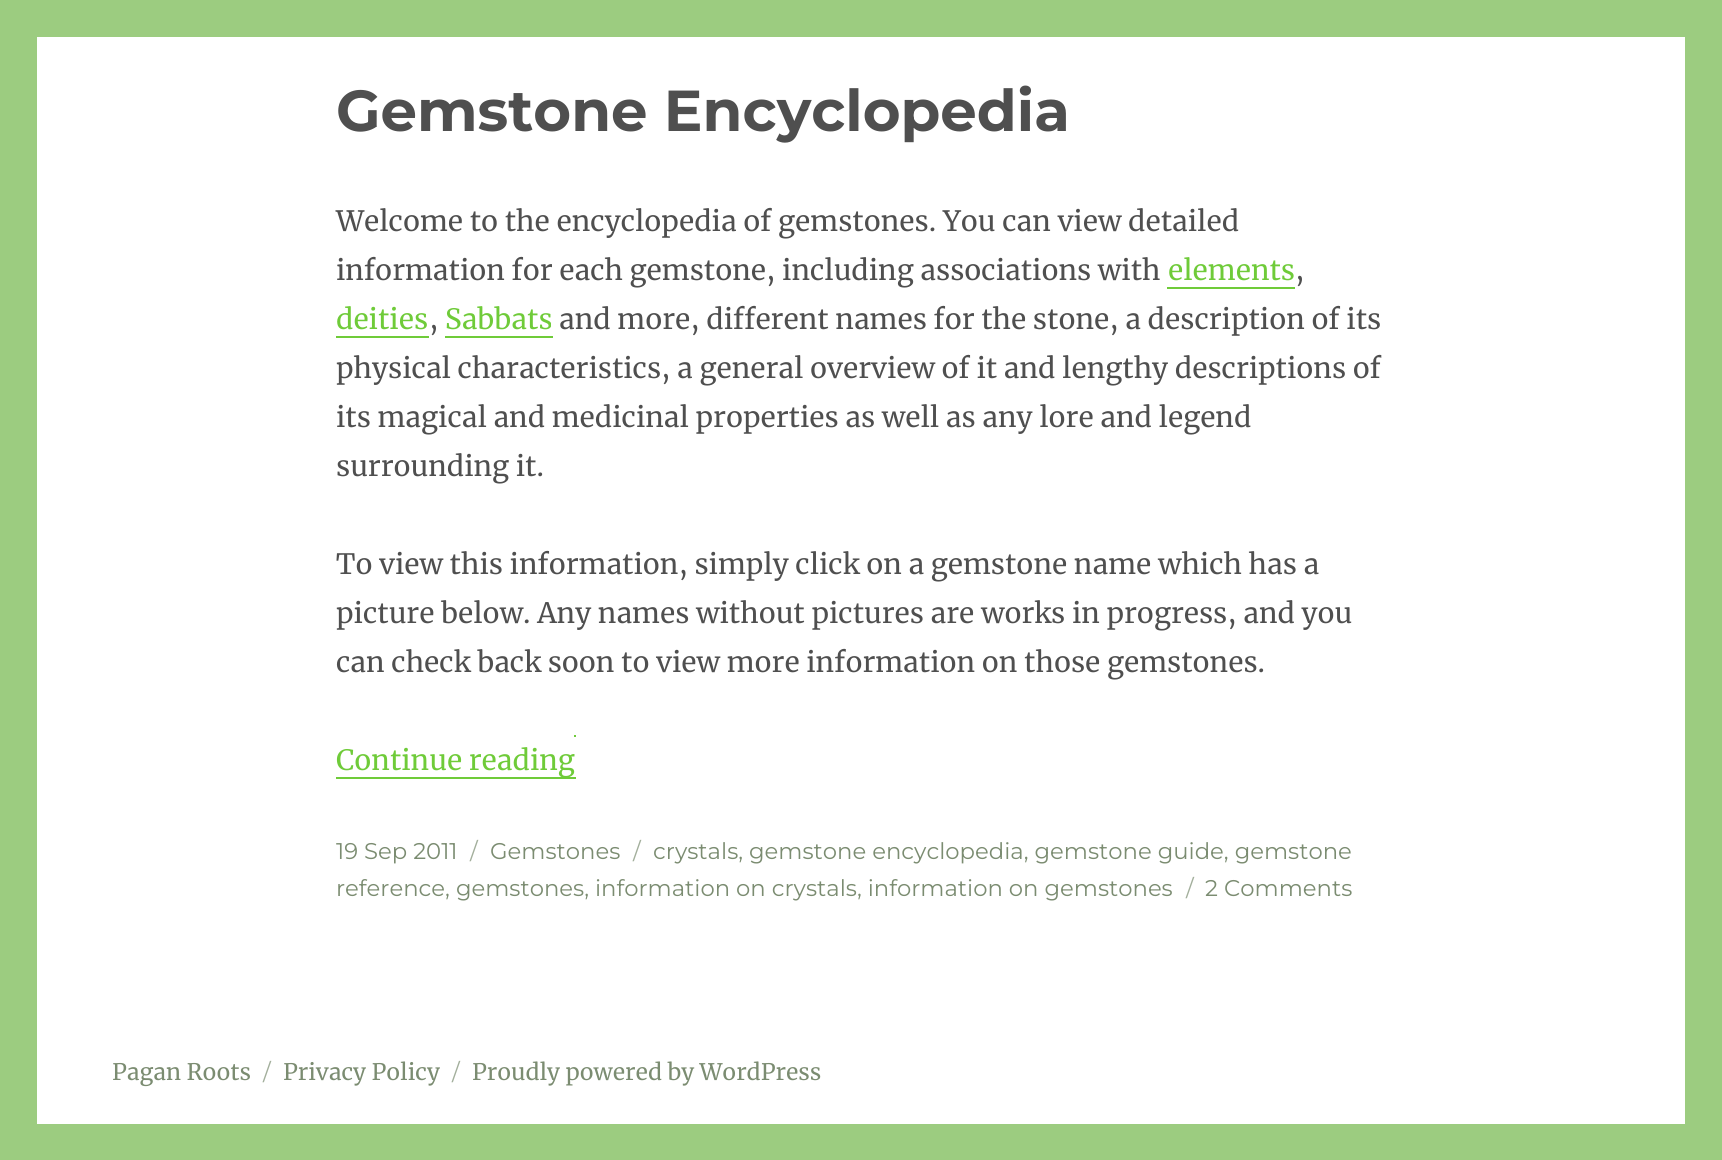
import math
import cairo

surface = cairo.ImageSurface(cairo.FORMAT_RGB24, 1722, 1160)
c = cairo.Context(surface)
options = cairo.FontOptions()
options.set_hint_metrics(cairo.HINT_METRICS_OFF)
options.set_hint_style(cairo.HINT_STYLE_NONE)
c.set_font_options(options)
c.set_miter_limit(4)
def C(code):
 c.set_source_rgb(*(v / 255 for v in bytes.fromhex(code[-6:])))
def F(family, size, italic, bold):
 c.select_font_face(family, cairo.FONT_SLANT_ITALIC if italic else cairo.FONT_SLANT_NORMAL, cairo.FONT_WEIGHT_BOLD if bold else cairo.FONT_WEIGHT_NORMAL)
 c.set_font_size(size)
def T(x, y, s):
 c.move_to(x, y)
 c.show_text(s)
def R(x, y, w, h):
 c.rectangle(x, y, w, h)
 c.fill()
C('9ccc80')
c.paint()
C('ffffff')
R(37,37,1648,1087)
F('Montserrat Thin',57.75,0,0)
C('4f4f4f')
T(336,131,'Gemstone Encyclopedia')
F('Merriweather',28,0,0)
T(336,231,'Welcome to the encyclopedia of gemstones. You can view detailed')
T(336,280,'information for each gemstone, including associations with')
C('6fcb39')
T(1168,280,'elements')
c.new_path()
c.move_to(1167,254)
c.line_to(1167,289)
c.line_to(1295,289)
c.line_to(1295,287)
c.line_to(1167,287)
c.close_path()
c.fill()
C('4f4f4f')
T(1295,280,',')
C('6fcb39')
T(336,329,'deities')
c.new_path()
c.move_to(336,336)
c.line_to(336,338)
c.line_to(429,338)
c.line_to(429,303)
c.line_to(429,336)
c.close_path()
c.fill()
C('4f4f4f')
T(429,329,',')
C('6fcb39')
T(445,329,'Sabbats')
R(445,336,108,2)
C('4f4f4f')
T(559,329,'and more, different names for the stone, a description of its')
T(336,378,'physical characteristics, a general overview of it and lengthy descriptions of')
T(336,427,'its magical and medicinal properties as well as any lore and legend')
T(336,476,'surrounding it.')
T(336,574,'To view this information, simply click on a gemstone name which has a')
T(336,623,'picture below. Any names without pictures are works in progress, and you')
T(336,672,'can check back soon to view more information on those gemstones.')
C('6fcb39')
c.new_path()
c.move_to(336,777)
c.line_to(336,779)
c.line_to(576,779)
c.line_to(576,744)
c.line_to(576,777)
c.close_path()
c.fill()
T(336,770,'Continue reading')
R(574,735,2,2)
F('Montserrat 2 Thin',22.75,0,0)
C('7b8c71')
T(336,859,'19 Sep 2011')
C('a3af9c')
T(470,859,'/')
C('7b8c71')
T(490,859,'Gemstones')
C('a3af9c')
T(633,859,'/')
C('7b8c71')
T(653,859,'crystals, gemstone encyclopedia, gemstone guide, gemstone')
T(336,896,'reference, gemstones, information on crystals, information on gemstones')
C('a3af9c')
T(1186,896,'/')
C('7b8c71')
T(1205,896,'2 Comments')
F('Merriweather',22.75,0,0)
T(112,1080,'Pagan Roots')
F('Montserrat 2 Thin',22.75,0,0)
C('a3af9c')
T(263,1080,'/')
F('Merriweather',22.75,0,0)
C('7b8c71')
T(283,1080,'Privacy Policy')
F('Montserrat 2 Thin',22.75,0,0)
C('a3af9c')
T(452,1080,'/')
F('Merriweather',22.75,0,0)
C('7b8c71')
T(472,1080,'Proudly powered by WordPress')
surface.write_to_png('o.png')
